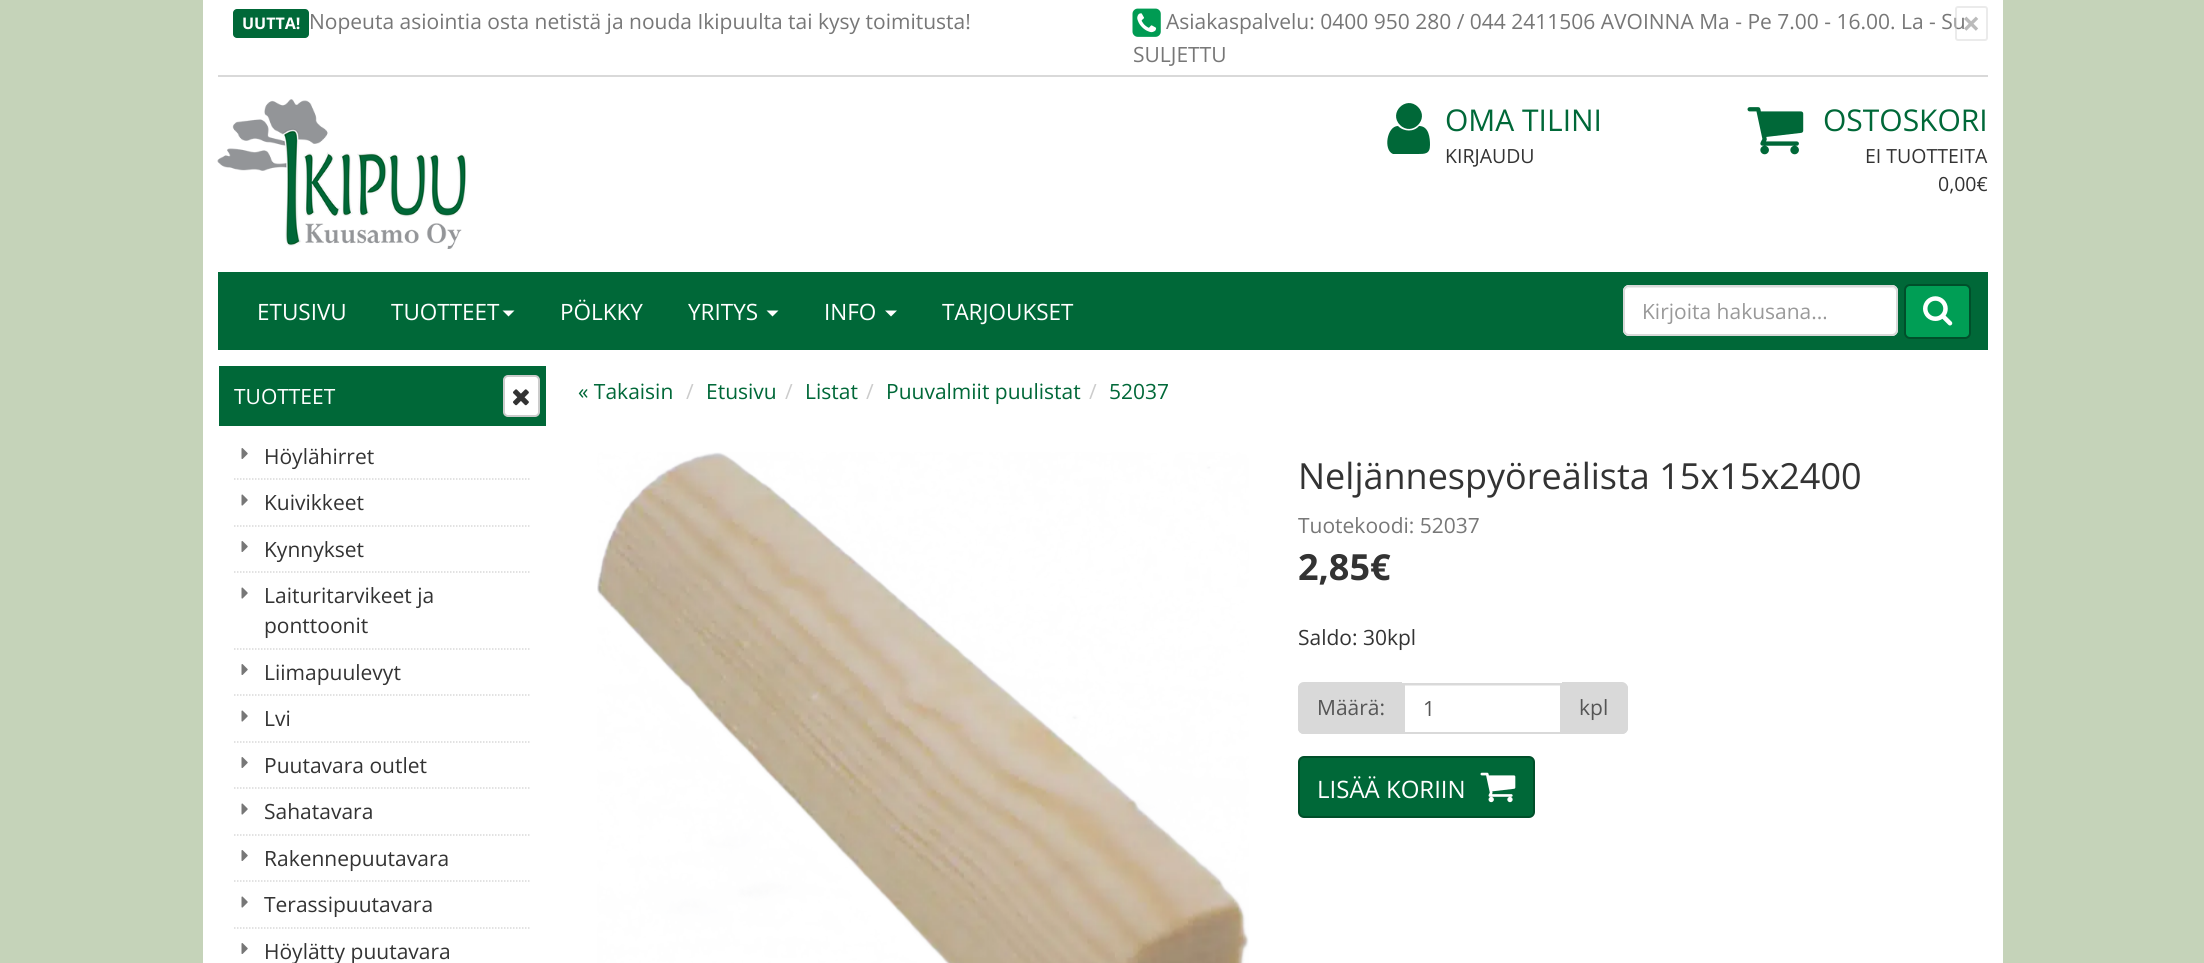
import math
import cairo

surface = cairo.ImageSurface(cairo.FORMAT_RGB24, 2204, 963)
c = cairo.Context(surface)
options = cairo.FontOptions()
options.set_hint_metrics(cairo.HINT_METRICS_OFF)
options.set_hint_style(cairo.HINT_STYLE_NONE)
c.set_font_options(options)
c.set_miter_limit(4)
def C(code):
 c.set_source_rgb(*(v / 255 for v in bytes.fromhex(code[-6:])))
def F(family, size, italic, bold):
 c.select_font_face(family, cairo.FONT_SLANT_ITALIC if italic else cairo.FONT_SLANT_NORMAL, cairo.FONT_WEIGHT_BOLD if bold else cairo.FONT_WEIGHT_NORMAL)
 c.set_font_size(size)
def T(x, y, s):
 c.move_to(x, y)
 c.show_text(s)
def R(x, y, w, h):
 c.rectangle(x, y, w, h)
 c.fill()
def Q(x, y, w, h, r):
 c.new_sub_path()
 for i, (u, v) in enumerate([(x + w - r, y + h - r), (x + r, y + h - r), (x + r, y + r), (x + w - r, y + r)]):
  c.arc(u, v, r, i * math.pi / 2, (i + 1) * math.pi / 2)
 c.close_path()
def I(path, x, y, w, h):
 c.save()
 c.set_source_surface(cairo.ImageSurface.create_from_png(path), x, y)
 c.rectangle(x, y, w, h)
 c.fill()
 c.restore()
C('c5d3b9')
c.paint()
C('ffffff')
R(203,0,1800,963)
C('d9d9d9')
R(218,75,1770,2)
C('006838')
Q(233,9,76,29,4)
c.fill()
F('Open Sans',16,0,1)
C('ffffff')
T(242,29,'UUTTA!')
F('Open Sans',21,0,0)
C('777777')
T(309,29,'Nopeuta asiointia osta netistä ja nouda Ikipuulta tai kysy toimitusta!')
I('1.png',1132,8,29,29)
T(1166,29,'Asiakaspalvelu: 0400 950 280 / 044 2411506 AVOINNA Ma - Pe 7.00 - 16.00. La - Su')
Q(1956,7,31,33,2)
c.set_source_rgba(0.851,0.851,0.851,0.5)
c.stroke()
F('Open Sans',32,0,1)
C('bbbbbb')
T(1962,35,'×')
F('Open Sans',21,0,0)
C('777777')
T(1133,62,'SULJETTU')
I('2.png',217,99,250,150)
C('006838')
c.new_path()
c.move_to(1430,145)
c.curve_to(1430,154,1425,154,1418,154)
c.line_to(1393,154)
c.curve_to(1383,150,1387,126,1398,126)
c.curve_to(1404,132,1414,132,1419,126)
c.curve_to(1429,126,1430,138,1430,145)
c.close_path()
c.move_to(1418,107)
c.curve_to(1430,119,1412,137,1400,125)
c.curve_to(1388,113,1406,95,1418,107)
c.close_path()
c.fill()
F('Open Sans',30,0,0)
T(1445,131,'OMA TILINI')
F('Open Sans',19.5,0,0)
C('333333')
T(1445,163,'KIRJAUDU')
I('3.png',1747,107,57,48)
F('Open Sans',30,0,0)
C('006838')
T(1823,131,'OSTOSKORI')
F('Open Sans',19.5,0,0)
C('333333')
T(1865,163,'EI TUOTTEITA')
T(1938,191,'0,00€')
C('006838')
R(218,272,1770,78)
F('Open Sans',22.5,0,0)
C('ffffff')
T(257,320,'ETUSIVU')
T(391,320,'TUOTTEET')
c.new_path()
c.move_to(502.5,310.5)
c.line_to(514.5,310.5)
c.line_to(508.5,316.5)
c.close_path()
c.fill()
T(560,320,'PÖLKKY')
T(688,320,'YRITYS')
c.new_path()
c.move_to(766.5,310.5)
c.line_to(778.5,310.5)
c.line_to(772.5,316.5)
c.close_path()
c.fill()
T(824,320,'INFO')
c.new_path()
c.move_to(885,310.5)
c.line_to(897,310.5)
c.line_to(891,316.5)
c.close_path()
c.fill()
T(942,320,'TARJOUKSET')
Q(1623,285,275,51,6)
c.fill()
C('ececec')
c.new_path()
c.move_to(1629,288)
c.line_to(1892,288)
c.curve_to(1894,288,1896,290,1896,292)
c.curve_to(1896,289,1894,287,1891,287)
c.line_to(1630,287)
c.curve_to(1628,287,1627,288,1626,289)
c.close_path()
c.fill()
Q(1624,286,273,49,5)
C('d9d9d9')
c.stroke()
F('Open Sans',21,0,0)
C('999999')
T(1642,319,'Kirjoita hakusana...')
C('009e55')
Q(1905,285,65,53,5)
c.fill_preserve()
C('004f2a')
c.stroke()
I('4.png',1923,296,30,30)
C('006838')
R(219,366,327,60)
C('ffffff')
T(234,404,'TUOTTEET')
I('5.png',241,448,7,11)
C('333333')
T(264,464,'Höylähirret')
c.new_path()
c.move_to(234,479)
c.line_to(531,479)
C('d9d9d9')
c.set_line_width(1.5)
c.set_dash([1.5,1.5])
c.stroke()
I('6.png',241,494,7,12)
C('333333')
T(264,510,'Kuivikkeet')
c.new_path()
c.move_to(234,526)
c.line_to(531,526)
C('d9d9d9')
c.stroke()
I('5.png',241,541,7,11)
C('333333')
T(264,557,'Kynnykset')
c.new_path()
c.move_to(234,572)
c.line_to(531,572)
C('d9d9d9')
c.stroke()
I('6.png',241,587,7,12)
C('333333')
T(264,603,'Laituritarvikeet ja')
T(264,633,'ponttoonit')
c.new_path()
c.move_to(234,649)
c.line_to(531,649)
C('d9d9d9')
c.stroke()
I('5.png',241,664,7,11)
C('333333')
T(264,680,'Liimapuulevyt')
c.new_path()
c.move_to(234,695)
c.line_to(531,695)
C('d9d9d9')
c.stroke()
I('6.png',241,710,7,12)
C('333333')
T(264,726,'Lvi')
c.new_path()
c.move_to(234,742)
c.line_to(531,742)
C('d9d9d9')
c.stroke()
I('5.png',241,757,7,11)
C('333333')
T(264,773,'Puutavara outlet')
c.new_path()
c.move_to(234,788)
c.line_to(531,788)
C('d9d9d9')
c.stroke()
I('6.png',241,803,7,12)
C('333333')
T(264,819,'Sahatavara')
c.new_path()
c.move_to(234,835)
c.line_to(531,835)
C('d9d9d9')
c.stroke()
I('5.png',241,850,7,11)
C('333333')
T(264,866,'Rakennepuutavara')
c.new_path()
c.move_to(234,881)
c.line_to(531,881)
C('d9d9d9')
c.stroke()
I('6.png',241,896,7,12)
C('333333')
T(264,912,'Terassipuutavara')
c.new_path()
c.move_to(234,928)
c.line_to(531,928)
C('d9d9d9')
c.stroke()
I('5.png',241,943,7,11)
C('333333')
T(264,959,'Höylätty puutavara')
C('ffffff')
Q(504,376,35,40,4)
c.fill_preserve()
C('cccccc')
c.set_line_width(2)
c.set_dash([])
c.stroke()
I('7.png',513,389,16,17)
C('006838')
T(578,399,'« Takaisin')
C('cccccc')
T(686,399,'/')
C('006838')
T(706,399,'Etusivu')
C('cccccc')
T(785,399,'/')
C('006838')
T(805,399,'Listat')
C('cccccc')
T(866,399,'/')
C('006838')
T(886,399,'Puuvalmiit puulistat')
C('cccccc')
T(1089,399,'/')
C('006838')
T(1109,399,'52037')
I('8.png',597,452,652,511)
F('Open Sans',36,0,0)
C('333333')
T(1298,489,'Neljännespyöreälista 15x15x2400')
F('Open Sans',21,0,0)
C('777777')
T(1298,533,'Tuotekoodi: 52037')
F('Open Sans',36,0,1)
C('333333')
T(1298,580,'2,85€')
F('Open Sans',21,0,0)
T(1298,645,'Saldo: 30kpl')
C('d9d9d9')
c.new_path()
c.move_to(1304,683)
c.line_to(1403,683)
c.line_to(1403,734)
c.line_to(1304,734)
c.curve_to(1300.5,734,1298,731.5,1298,728)
c.line_to(1298,689)
c.curve_to(1298,685.5,1300.5,683,1304,683)
c.close_path()
c.fill()
c.set_fill_rule(cairo.FILL_RULE_EVEN_ODD)
c.new_path()
c.move_to(1304,682)
c.line_to(1402,682)
c.line_to(1402,734)
c.line_to(1304,734)
c.curve_to(1300,734,1298,731,1298,728)
c.line_to(1298,688)
c.curve_to(1298,685,1300,682,1304,682)
c.close_path()
c.move_to(1304,684)
c.line_to(1402,684)
c.line_to(1402,732)
c.line_to(1304,732)
c.curve_to(1301,732,1299,730,1299,728)
c.line_to(1299,688)
c.curve_to(1299,686,1301,684,1304,684)
c.close_path()
c.fill()
C('555555')
T(1317,715,'Määrä:')
C('ececec')
R(1404,685,156,1)
c.rectangle(1404,684,157,49)
C('d9d9d9')
c.stroke()
C('555555')
T(1423,716,'1')
C('d9d9d9')
c.new_path()
c.move_to(1562,683)
c.line_to(1622,683)
c.curve_to(1625.5,683,1628,685.5,1628,689)
c.line_to(1628,728)
c.curve_to(1628,731.5,1625.5,734,1622,734)
c.line_to(1562,734)
c.close_path()
c.fill()
c.new_path()
c.move_to(1562,682)
c.line_to(1622,682)
c.curve_to(1625,682,1628,685,1628,688)
c.line_to(1628,728)
c.curve_to(1628,731,1625,734,1622,734)
c.line_to(1562,734)
c.close_path()
c.move_to(1562,684)
c.line_to(1622,684)
c.curve_to(1624,684,1626,686,1626,688)
c.line_to(1626,728)
c.curve_to(1626,730,1624,732,1622,732)
c.line_to(1562,732)
c.close_path()
c.fill()
C('555555')
T(1579,715,'kpl')
C('006838')
Q(1299,757,235,60,5)
c.fill_preserve()
C('004f2a')
c.stroke()
F('Open Sans',24,0,0)
C('ffffff')
T(1317,798,'LISÄÄ KORIIN')
I('9.png',1480,772,36,31)
surface.write_to_png('o.png')
